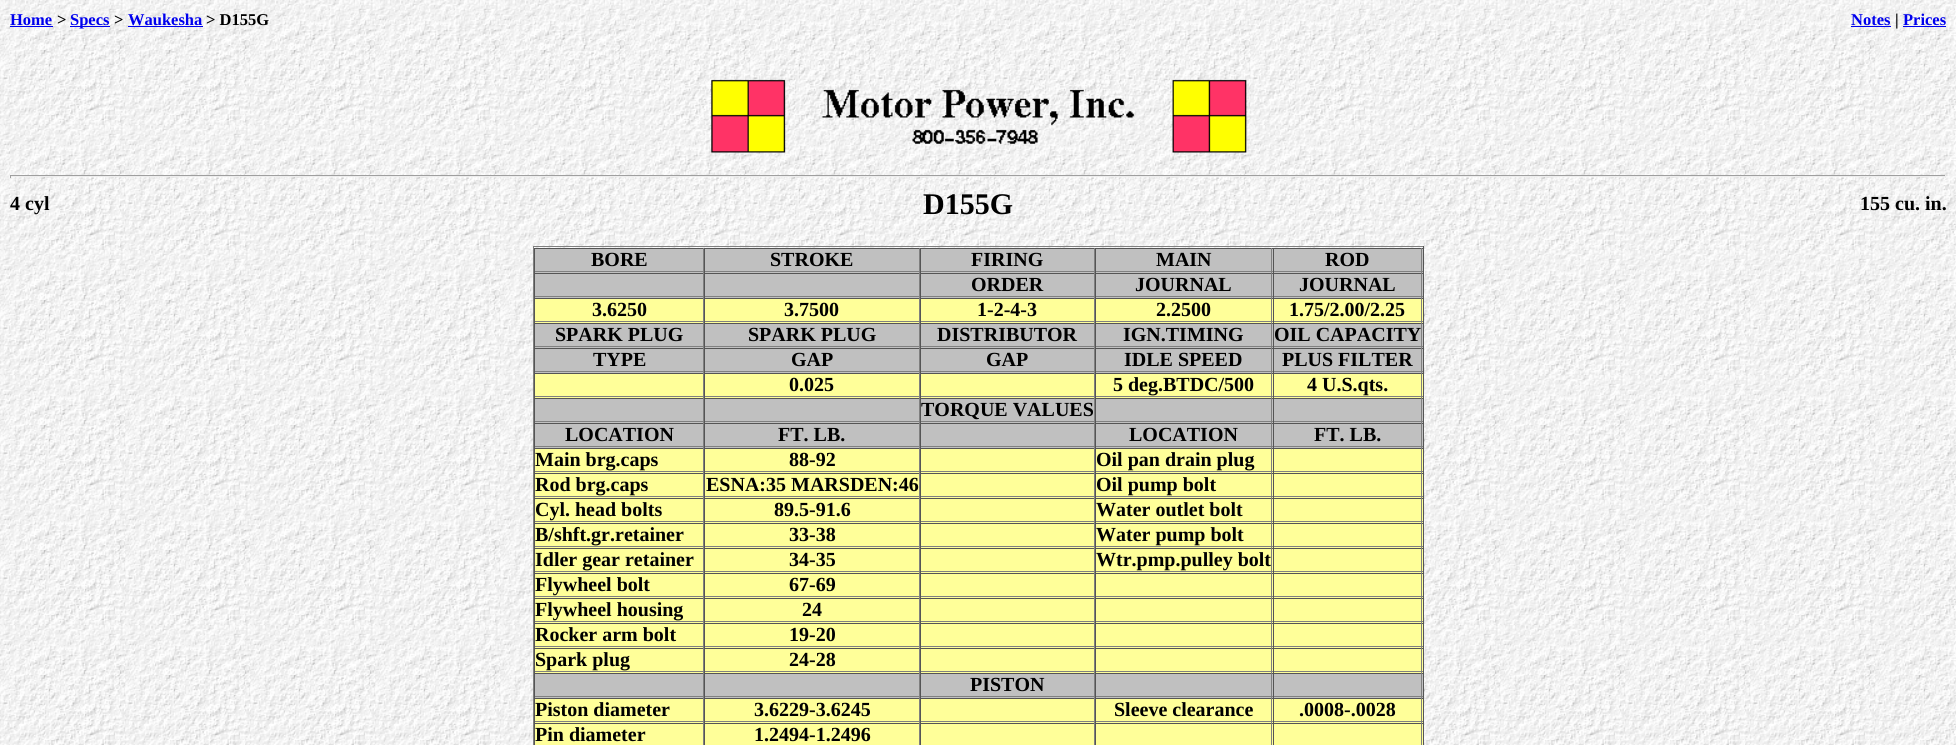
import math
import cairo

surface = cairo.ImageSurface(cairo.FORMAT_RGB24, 1956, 745)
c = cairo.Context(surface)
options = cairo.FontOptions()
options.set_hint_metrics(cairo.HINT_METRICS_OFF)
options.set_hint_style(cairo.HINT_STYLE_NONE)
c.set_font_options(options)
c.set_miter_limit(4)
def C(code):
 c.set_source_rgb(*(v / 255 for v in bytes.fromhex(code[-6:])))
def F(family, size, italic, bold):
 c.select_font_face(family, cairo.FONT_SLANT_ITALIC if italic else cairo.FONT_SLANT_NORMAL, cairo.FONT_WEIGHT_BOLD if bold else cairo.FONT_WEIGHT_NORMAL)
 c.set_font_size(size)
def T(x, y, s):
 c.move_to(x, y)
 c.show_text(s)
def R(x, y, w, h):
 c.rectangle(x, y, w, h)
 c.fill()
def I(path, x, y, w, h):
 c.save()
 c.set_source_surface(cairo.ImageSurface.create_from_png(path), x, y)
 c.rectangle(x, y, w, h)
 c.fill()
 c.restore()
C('ffffff')
c.paint()
I('1.png',0,0,1956,745)
F('Liberation Serif',16.5,0,1)
C('0000ee')
T(10,25,'Home')
R(10,26,43,1)
C('000000')
T(57,25,'>')
C('0000ee')
R(70,26,40,1)
T(70,25,'Specs')
C('000000')
T(114,25,'>')
C('0000ee')
T(128,25,'Waukesha')
R(128,26,75,1)
C('000000')
T(206,25,'> D155G')
C('0000ee')
T(1851,25,'Notes')
R(1851,26,40,1)
C('000000')
T(1895,25,'|')
C('0000ee')
T(1903,25,'Prices')
R(1903,26,43,1)
I('2.png',711,79,536,74)
C('9f9f9f')
R(10,175,1936,1)
C('eeeeee')
R(1945,175,1,3)
R(10,176,1936,1)
C('9f9f9f')
R(10,175,1,3)
F('Liberation Serif',20,0,1)
C('000000')
T(10,210,'4 cyl')
F('Liberation Serif',30,0,1)
T(923,214,'D155G')
F('Liberation Serif',20,0,1)
T(1860,210,'155 cu. in.')
C('808080')
R(533,246,891,1)
C('555555')
R(1423,246,1,499)
C('808080')
R(533,246,1,499)
C('c0c0c0')
R(535,249,168,24)
C('555555')
R(534,248,889,1)
C('808080')
R(703,248,1,25)
R(534,271,170,1)
C('555555')
R(534,248,1,25)
C('000000')
T(591,266,'BORE')
C('c0c0c0')
R(705,249,214,24)
C('808080')
R(919,248,1,25)
R(704,271,216,1)
C('555555')
R(704,248,1,25)
C('000000')
T(770,266,'STROKE')
C('c0c0c0')
R(921,249,173,24)
C('808080')
R(1094,248,1,25)
R(920,271,175,1)
C('555555')
R(920,248,1,25)
C('000000')
T(971,266,'FIRING')
C('c0c0c0')
R(1096,249,177,24)
C('808080')
R(1271,248,1,25)
R(1095,271,178,1)
C('555555')
R(1095,248,1,25)
C('000000')
T(1156,266,'MAIN')
C('c0c0c0')
R(1274,249,149,24)
C('808080')
R(1421,248,1,25)
R(1273,271,150,1)
C('555555')
R(1273,248,1,25)
C('000000')
T(1325,266,'ROD')
C('c0c0c0')
R(535,274,168,24)
C('555555')
R(534,273,889,1)
C('808080')
R(703,273,1,25)
R(534,296,170,1)
C('555555')
R(534,273,1,25)
C('c0c0c0')
R(705,274,214,24)
C('808080')
R(919,273,1,25)
R(704,296,216,1)
C('555555')
R(704,273,1,25)
C('c0c0c0')
R(921,274,173,24)
C('808080')
R(1094,273,1,25)
R(920,296,175,1)
C('555555')
R(920,273,1,25)
C('000000')
T(971,291,'ORDER')
C('c0c0c0')
R(1096,274,177,24)
C('808080')
R(1271,273,1,25)
R(1095,296,178,1)
C('555555')
R(1095,273,1,25)
C('000000')
T(1135,291,'JOURNAL')
C('c0c0c0')
R(1274,274,149,24)
C('808080')
R(1421,273,1,25)
R(1273,296,150,1)
C('555555')
R(1273,273,1,25)
C('000000')
T(1299,291,'JOURNAL')
C('ffff99')
R(535,299,168,24)
C('555555')
R(534,298,889,1)
C('808080')
R(703,298,1,25)
R(534,321,170,1)
C('555555')
R(534,298,1,25)
C('000000')
T(592,316,'3.6250')
C('ffff99')
R(705,299,214,24)
C('808080')
R(919,298,1,25)
R(704,321,216,1)
C('555555')
R(704,298,1,25)
C('000000')
T(784,316,'3.7500')
C('ffff99')
R(921,299,173,24)
C('808080')
R(1094,298,1,25)
R(920,321,175,1)
C('555555')
R(920,298,1,25)
C('000000')
T(977,316,'1-2-4-3')
C('ffff99')
R(1096,299,177,24)
C('808080')
R(1271,298,1,25)
R(1095,321,178,1)
C('555555')
R(1095,298,1,25)
C('000000')
T(1156,316,'2.2500')
C('ffff99')
R(1274,299,149,24)
C('808080')
R(1421,298,1,25)
R(1273,321,150,1)
C('555555')
R(1273,298,1,25)
C('000000')
T(1289,316,'1.75/2.00/2.25')
C('c0c0c0')
R(535,324,168,24)
C('555555')
R(534,323,889,1)
C('808080')
R(703,323,1,25)
R(534,346,170,1)
C('555555')
R(534,323,1,25)
C('000000')
T(555,341,'SPARK PLUG')
C('c0c0c0')
R(705,324,214,24)
C('808080')
R(919,323,1,25)
R(704,346,216,1)
C('555555')
R(704,323,1,25)
C('000000')
T(748,341,'SPARK PLUG')
C('c0c0c0')
R(921,324,173,24)
C('808080')
R(1094,323,1,25)
R(920,346,175,1)
C('555555')
R(920,323,1,25)
C('000000')
T(937,341,'DISTRIBUTOR')
C('c0c0c0')
R(1096,324,177,24)
C('808080')
R(1271,323,1,25)
R(1095,346,178,1)
C('555555')
R(1095,323,1,25)
C('000000')
T(1123,341,'IGN.TIMING')
C('c0c0c0')
R(1274,324,149,24)
C('808080')
R(1421,323,1,25)
R(1273,346,150,1)
C('555555')
R(1273,323,1,25)
C('000000')
T(1274,341,'OIL CAPACITY')
C('c0c0c0')
R(535,349,168,24)
C('555555')
R(534,348,889,1)
C('808080')
R(703,348,1,25)
R(534,371,170,1)
C('555555')
R(534,348,1,25)
C('000000')
T(593,366,'TYPE')
C('c0c0c0')
R(705,349,214,24)
C('808080')
R(919,348,1,25)
R(704,371,216,1)
C('555555')
R(704,348,1,25)
C('000000')
T(791,366,'GAP')
C('c0c0c0')
R(921,349,173,24)
C('808080')
R(1094,348,1,25)
R(920,371,175,1)
C('555555')
R(920,348,1,25)
C('000000')
T(986,366,'GAP')
C('c0c0c0')
R(1096,349,177,24)
C('808080')
R(1271,348,1,25)
R(1095,371,178,1)
C('555555')
R(1095,348,1,25)
C('000000')
T(1124,366,'IDLE SPEED')
C('c0c0c0')
R(1274,349,149,24)
C('808080')
R(1421,348,1,25)
R(1273,371,150,1)
C('555555')
R(1273,348,1,25)
C('000000')
T(1282,366,'PLUS FILTER')
C('ffff99')
R(535,374,168,24)
C('555555')
R(534,373,889,1)
C('808080')
R(703,373,1,25)
R(534,396,170,1)
C('555555')
R(534,373,1,25)
C('ffff99')
R(705,374,214,24)
C('808080')
R(919,373,1,25)
R(704,396,216,1)
C('555555')
R(704,373,1,25)
C('000000')
T(789,391,'0.025')
C('ffff99')
R(921,374,173,24)
C('808080')
R(1094,373,1,25)
R(920,396,175,1)
C('555555')
R(920,373,1,25)
C('ffff99')
R(1096,374,177,24)
C('808080')
R(1271,373,1,25)
R(1095,396,178,1)
C('555555')
R(1095,373,1,25)
C('000000')
T(1113,391,'5 deg.BTDC/500')
C('ffff99')
R(1274,374,149,24)
C('808080')
R(1421,373,1,25)
R(1273,396,150,1)
C('555555')
R(1273,373,1,25)
C('000000')
T(1307,391,'4 U.S.qts.')
C('c0c0c0')
R(535,399,168,24)
C('555555')
R(534,398,889,1)
C('808080')
R(703,398,1,25)
R(534,421,170,1)
C('555555')
R(534,398,1,25)
C('c0c0c0')
R(705,399,214,24)
C('808080')
R(919,398,1,25)
R(704,421,216,1)
C('555555')
R(704,398,1,25)
C('c0c0c0')
R(921,399,173,24)
C('808080')
R(1094,398,1,25)
R(920,421,175,1)
C('555555')
R(920,398,1,25)
C('000000')
T(921,416,'TORQUE VALUES')
C('c0c0c0')
R(1096,399,177,24)
C('808080')
R(1271,398,1,25)
R(1095,421,178,1)
C('555555')
R(1095,398,1,25)
C('c0c0c0')
R(1274,399,149,24)
C('808080')
R(1421,398,1,25)
R(1273,421,150,1)
C('555555')
R(1273,398,1,25)
C('c0c0c0')
R(535,424,168,24)
C('555555')
R(534,423,889,1)
C('808080')
R(703,423,1,25)
R(534,446,170,1)
C('555555')
R(534,423,1,25)
C('000000')
T(565,441,'LOCATION')
C('c0c0c0')
R(705,424,214,24)
C('808080')
R(919,423,1,25)
R(704,446,216,1)
C('555555')
R(704,423,1,25)
C('000000')
T(778,441,'FT. LB.')
C('c0c0c0')
R(921,424,173,24)
C('808080')
R(1094,423,1,25)
R(920,446,175,1)
C('555555')
R(920,423,1,25)
C('c0c0c0')
R(1096,424,177,24)
C('808080')
R(1271,423,1,25)
R(1095,446,178,1)
C('555555')
R(1095,423,1,25)
C('000000')
T(1129,441,'LOCATION')
C('c0c0c0')
R(1274,424,149,24)
C('808080')
R(1421,423,1,25)
R(1273,446,150,1)
C('555555')
R(1273,423,1,25)
C('000000')
T(1314,441,'FT. LB.')
C('ffff99')
R(535,449,168,24)
C('555555')
R(534,448,889,1)
C('808080')
R(703,448,1,25)
R(534,471,170,1)
C('555555')
R(534,448,1,25)
C('000000')
T(535,466,'Main brg.caps')
C('ffff99')
R(705,449,214,24)
C('808080')
R(919,448,1,25)
R(704,471,216,1)
C('555555')
R(704,448,1,25)
C('000000')
T(789,466,'88-92')
C('ffff99')
R(921,449,173,24)
C('808080')
R(1094,448,1,25)
R(920,471,175,1)
C('555555')
R(920,448,1,25)
C('ffff99')
R(1096,449,177,24)
C('808080')
R(1271,448,1,25)
R(1095,471,178,1)
C('555555')
R(1095,448,1,25)
C('000000')
T(1096,466,'Oil pan drain plug')
C('ffff99')
R(1274,449,149,24)
C('808080')
R(1421,448,1,25)
R(1273,471,150,1)
C('555555')
R(1273,448,1,25)
C('ffff99')
R(535,474,168,24)
C('555555')
R(534,473,889,1)
C('808080')
R(703,473,1,25)
R(534,496,170,1)
C('555555')
R(534,473,1,25)
C('000000')
T(535,491,'Rod brg.caps')
C('ffff99')
R(705,474,214,24)
C('808080')
R(919,473,1,25)
R(704,496,216,1)
C('555555')
R(704,473,1,25)
C('000000')
T(706,491,'ESNA:35 MARSDEN:46')
C('ffff99')
R(921,474,173,24)
C('808080')
R(1094,473,1,25)
R(920,496,175,1)
C('555555')
R(920,473,1,25)
C('ffff99')
R(1096,474,177,24)
C('808080')
R(1271,473,1,25)
R(1095,496,178,1)
C('555555')
R(1095,473,1,25)
C('000000')
T(1096,491,'Oil pump bolt')
C('ffff99')
R(1274,474,149,24)
C('808080')
R(1421,473,1,25)
R(1273,496,150,1)
C('555555')
R(1273,473,1,25)
C('ffff99')
R(535,499,168,24)
C('555555')
R(534,498,889,1)
C('808080')
R(703,498,1,25)
R(534,521,170,1)
C('555555')
R(534,498,1,25)
C('000000')
T(535,516,'Cyl. head bolts')
C('ffff99')
R(705,499,214,24)
C('808080')
R(919,498,1,25)
R(704,521,216,1)
C('555555')
R(704,498,1,25)
C('000000')
T(774,516,'89.5-91.6')
C('ffff99')
R(921,499,173,24)
C('808080')
R(1094,498,1,25)
R(920,521,175,1)
C('555555')
R(920,498,1,25)
C('ffff99')
R(1096,499,177,24)
C('808080')
R(1271,498,1,25)
R(1095,521,178,1)
C('555555')
R(1095,498,1,25)
C('000000')
T(1096,516,'Water outlet bolt')
C('ffff99')
R(1274,499,149,24)
C('808080')
R(1421,498,1,25)
R(1273,521,150,1)
C('555555')
R(1273,498,1,25)
C('ffff99')
R(535,524,168,24)
C('555555')
R(534,523,889,1)
C('808080')
R(703,523,1,25)
R(534,546,170,1)
C('555555')
R(534,523,1,25)
C('000000')
T(535,541,'B/shft.gr.retainer')
C('ffff99')
R(705,524,214,24)
C('808080')
R(919,523,1,25)
R(704,546,216,1)
C('555555')
R(704,523,1,25)
C('000000')
T(789,541,'33-38')
C('ffff99')
R(921,524,173,24)
C('808080')
R(1094,523,1,25)
R(920,546,175,1)
C('555555')
R(920,523,1,25)
C('ffff99')
R(1096,524,177,24)
C('808080')
R(1271,523,1,25)
R(1095,546,178,1)
C('555555')
R(1095,523,1,25)
C('000000')
T(1096,541,'Water pump bolt')
C('ffff99')
R(1274,524,149,24)
C('808080')
R(1421,523,1,25)
R(1273,546,150,1)
C('555555')
R(1273,523,1,25)
C('ffff99')
R(535,549,168,24)
C('555555')
R(534,548,889,1)
C('808080')
R(703,548,1,25)
R(534,571,170,1)
C('555555')
R(534,548,1,25)
C('000000')
T(535,566,'Idler gear retainer')
C('ffff99')
R(705,549,214,24)
C('808080')
R(919,548,1,25)
R(704,571,216,1)
C('555555')
R(704,548,1,25)
C('000000')
T(789,566,'34-35')
C('ffff99')
R(921,549,173,24)
C('808080')
R(1094,548,1,25)
R(920,571,175,1)
C('555555')
R(920,548,1,25)
C('ffff99')
R(1096,549,177,24)
C('808080')
R(1271,548,1,25)
R(1095,571,178,1)
C('555555')
R(1095,548,1,25)
C('000000')
T(1096,566,'Wtr.pmp.pulley bolt')
C('ffff99')
R(1274,549,149,24)
C('808080')
R(1421,548,1,25)
R(1273,571,150,1)
C('555555')
R(1273,548,1,25)
C('ffff99')
R(535,574,168,24)
C('555555')
R(534,573,889,1)
C('808080')
R(703,573,1,25)
R(534,596,170,1)
C('555555')
R(534,573,1,25)
C('000000')
T(535,591,'Flywheel bolt')
C('ffff99')
R(705,574,214,24)
C('808080')
R(919,573,1,25)
R(704,596,216,1)
C('555555')
R(704,573,1,25)
C('000000')
T(789,591,'67-69')
C('ffff99')
R(921,574,173,24)
C('808080')
R(1094,573,1,25)
R(920,596,175,1)
C('555555')
R(920,573,1,25)
C('ffff99')
R(1096,574,177,24)
C('808080')
R(1271,573,1,25)
R(1095,596,178,1)
C('555555')
R(1095,573,1,25)
C('ffff99')
R(1274,574,149,24)
C('808080')
R(1421,573,1,25)
R(1273,596,150,1)
C('555555')
R(1273,573,1,25)
C('ffff99')
R(535,599,168,24)
C('555555')
R(534,598,889,1)
C('808080')
R(703,598,1,25)
R(534,621,170,1)
C('555555')
R(534,598,1,25)
C('000000')
T(535,616,'Flywheel housing')
C('ffff99')
R(705,599,214,24)
C('808080')
R(919,598,1,25)
R(704,621,216,1)
C('555555')
R(704,598,1,25)
C('000000')
T(802,616,'24')
C('ffff99')
R(921,599,173,24)
C('808080')
R(1094,598,1,25)
R(920,621,175,1)
C('555555')
R(920,598,1,25)
C('ffff99')
R(1096,599,177,24)
C('808080')
R(1271,598,1,25)
R(1095,621,178,1)
C('555555')
R(1095,598,1,25)
C('ffff99')
R(1274,599,149,24)
C('808080')
R(1421,598,1,25)
R(1273,621,150,1)
C('555555')
R(1273,598,1,25)
C('ffff99')
R(535,624,168,24)
C('555555')
R(534,623,889,1)
C('808080')
R(703,623,1,25)
R(534,646,170,1)
C('555555')
R(534,623,1,25)
C('000000')
T(535,641,'Rocker arm bolt')
C('ffff99')
R(705,624,214,24)
C('808080')
R(919,623,1,25)
R(704,646,216,1)
C('555555')
R(704,623,1,25)
C('000000')
T(789,641,'19-20')
C('ffff99')
R(921,624,173,24)
C('808080')
R(1094,623,1,25)
R(920,646,175,1)
C('555555')
R(920,623,1,25)
C('ffff99')
R(1096,624,177,24)
C('808080')
R(1271,623,1,25)
R(1095,646,178,1)
C('555555')
R(1095,623,1,25)
C('ffff99')
R(1274,624,149,24)
C('808080')
R(1421,623,1,25)
R(1273,646,150,1)
C('555555')
R(1273,623,1,25)
C('ffff99')
R(535,649,168,24)
C('555555')
R(534,648,889,1)
C('808080')
R(703,648,1,25)
R(534,671,170,1)
C('555555')
R(534,648,1,25)
C('000000')
T(535,666,'Spark plug')
C('ffff99')
R(705,649,214,24)
C('808080')
R(919,648,1,25)
R(704,671,216,1)
C('555555')
R(704,648,1,25)
C('000000')
T(789,666,'24-28')
C('ffff99')
R(921,649,173,24)
C('808080')
R(1094,648,1,25)
R(920,671,175,1)
C('555555')
R(920,648,1,25)
C('ffff99')
R(1096,649,177,24)
C('808080')
R(1271,648,1,25)
R(1095,671,178,1)
C('555555')
R(1095,648,1,25)
C('ffff99')
R(1274,649,149,24)
C('808080')
R(1421,648,1,25)
R(1273,671,150,1)
C('555555')
R(1273,648,1,25)
C('c0c0c0')
R(535,674,168,24)
C('555555')
R(534,673,889,1)
C('808080')
R(703,673,1,25)
R(534,696,170,1)
C('555555')
R(534,673,1,25)
C('c0c0c0')
R(705,674,214,24)
C('808080')
R(919,673,1,25)
R(704,696,216,1)
C('555555')
R(704,673,1,25)
C('c0c0c0')
R(921,674,173,24)
C('808080')
R(1094,673,1,25)
R(920,696,175,1)
C('555555')
R(920,673,1,25)
C('000000')
T(970,691,'PISTON')
C('c0c0c0')
R(1096,674,177,24)
C('808080')
R(1271,673,1,25)
R(1095,696,178,1)
C('555555')
R(1095,673,1,25)
C('c0c0c0')
R(1274,674,149,24)
C('808080')
R(1421,673,1,25)
R(1273,696,150,1)
C('555555')
R(1273,673,1,25)
C('ffff99')
R(535,699,168,24)
C('555555')
R(534,698,889,1)
C('808080')
R(703,698,1,25)
R(534,721,170,1)
C('555555')
R(534,698,1,25)
C('000000')
T(535,716,'Piston diameter')
C('ffff99')
R(705,699,214,24)
C('808080')
R(919,698,1,25)
R(704,721,216,1)
C('555555')
R(704,698,1,25)
C('000000')
T(754,716,'3.6229-3.6245')
C('ffff99')
R(921,699,173,24)
C('808080')
R(1094,698,1,25)
R(920,721,175,1)
C('555555')
R(920,698,1,25)
C('ffff99')
R(1096,699,177,24)
C('808080')
R(1271,698,1,25)
R(1095,721,178,1)
C('555555')
R(1095,698,1,25)
C('000000')
T(1114,716,'Sleeve clearance')
C('ffff99')
R(1274,699,149,24)
C('808080')
R(1421,698,1,25)
R(1273,721,150,1)
C('555555')
R(1273,698,1,25)
C('000000')
T(1299,716,'.0008-.0028')
C('ffff99')
R(535,724,168,21)
C('555555')
R(534,723,889,1)
C('808080')
R(703,723,1,22)
C('555555')
R(534,723,1,22)
C('000000')
T(535,741,'Pin diameter')
C('ffff99')
R(705,724,214,21)
C('808080')
R(919,723,1,22)
C('555555')
R(704,723,1,22)
C('000000')
T(754,741,'1.2494-1.2496')
C('ffff99')
R(921,724,173,21)
C('808080')
R(1094,723,1,22)
C('555555')
R(920,723,1,22)
C('ffff99')
R(1096,724,177,21)
C('808080')
R(1271,723,1,22)
C('555555')
R(1095,723,1,22)
C('ffff99')
R(1274,724,149,21)
C('808080')
R(1421,723,1,22)
C('555555')
R(1273,723,1,22)
surface.write_to_png('o.png')
